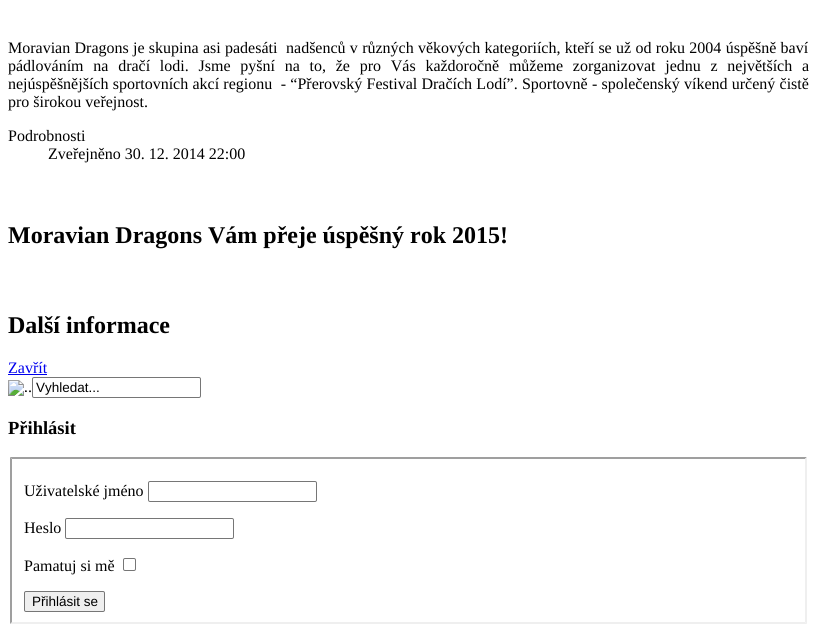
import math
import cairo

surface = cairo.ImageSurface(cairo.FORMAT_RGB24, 817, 639)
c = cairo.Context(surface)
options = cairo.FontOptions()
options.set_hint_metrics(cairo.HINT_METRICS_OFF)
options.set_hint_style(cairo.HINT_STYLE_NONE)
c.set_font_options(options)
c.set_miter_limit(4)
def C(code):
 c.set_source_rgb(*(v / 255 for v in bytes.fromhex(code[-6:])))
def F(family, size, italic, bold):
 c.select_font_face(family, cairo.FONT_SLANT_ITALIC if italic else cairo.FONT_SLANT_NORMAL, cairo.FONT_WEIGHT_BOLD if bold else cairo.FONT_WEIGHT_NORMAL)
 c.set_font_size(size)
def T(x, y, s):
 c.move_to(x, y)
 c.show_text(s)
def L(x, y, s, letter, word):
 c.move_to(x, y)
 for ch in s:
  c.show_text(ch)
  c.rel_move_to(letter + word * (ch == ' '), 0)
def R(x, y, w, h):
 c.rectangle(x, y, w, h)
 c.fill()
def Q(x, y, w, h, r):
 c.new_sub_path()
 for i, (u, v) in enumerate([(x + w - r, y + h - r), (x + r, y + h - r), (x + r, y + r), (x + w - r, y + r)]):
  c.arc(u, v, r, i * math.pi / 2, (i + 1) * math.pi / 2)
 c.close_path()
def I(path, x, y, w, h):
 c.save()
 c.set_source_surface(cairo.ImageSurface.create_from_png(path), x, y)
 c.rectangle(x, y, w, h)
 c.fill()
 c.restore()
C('ffffff')
c.paint()
F('Liberation Serif',16,0,0)
C('000000')
L(8,53,'Moravian Dragons je skupina asi padesáti  nadšenců v různých věkových kategoriích, kteří se už od roku 2004 úspěšně baví',0,.3)
L(8,71,'pádlováním na dračí lodi. Jsme pyšní na to, že pro Vás každoročně můžeme zorganizovat jednu z největších a',0,5.75)
L(8,89,'nejúspěšnějších sportovních akcí regionu  - “Přerovský Festival Dračích Lodí”. Sportovně - společenský víkend určený čistě',0,.25)
T(8,107,'pro širokou veřejnost.')
T(8,141,'Podrobnosti')
T(48,159,'Zveřejněno 30. 12. 2014 22:00')
F('Liberation Serif',24,0,1)
T(8,243,'Moravian Dragons Vám přeje úspěšný rok 2015!')
T(8,333,'Další informace')
F('Liberation Serif',16,0,0)
C('0000ee')
T(8,373,'Zavřít')
R(8,374,39,1)
I('1.png',8,380,19,16)
F('Liberation Sans',13.5,0,0)
C('000000')
T(24,392,'.')
F('Liberation Serif',16,0,0)
T(28,392,'.')
Q(32.5,377.5,168,20,1.5)
C('767676')
c.set_line_width(1)
c.stroke()
F('Liberation Sans',13.5,0,0)
C('000000')
T(36,392,'Vyhledat...')
F('Liberation Serif',18.5,0,1)
T(8,434,'Přihlásit')
C('9f9f9f')
c.new_path()
c.move_to(10,457)
c.line_to(807,457)
c.line_to(805,459)
c.line_to(12,459)
c.close_path()
c.fill()
C('efefef')
c.new_path()
c.move_to(807,457)
c.line_to(807,624)
c.line_to(805,622)
c.line_to(805,459)
c.close_path()
c.fill()
c.new_path()
c.move_to(807,624)
c.line_to(10,624)
c.line_to(12,622)
c.line_to(805,622)
c.close_path()
c.fill()
C('9f9f9f')
c.new_path()
c.move_to(10,624)
c.line_to(10,457)
c.line_to(12,459)
c.line_to(12,622)
c.close_path()
c.fill()
F('Liberation Serif',16,0,0)
C('000000')
T(24,496,'Uživatelské jméno')
Q(148.5,481.5,168,20,1.5)
C('767676')
c.stroke()
C('000000')
T(24,533,'Heslo')
Q(65.5,518.5,168,20,1.5)
C('767676')
c.stroke()
C('000000')
T(24,571,'Pamatuj si mě')
Q(123.5,558.5,12,12,1.5)
C('767676')
c.stroke()
C('efefef')
Q(24.5,591.5,80,20,1.5)
c.fill_preserve()
C('767676')
c.stroke()
F('Liberation Sans',13.5,0,0)
C('000000')
T(32,606,'Přihlásit se')
surface.write_to_png('o.png')
